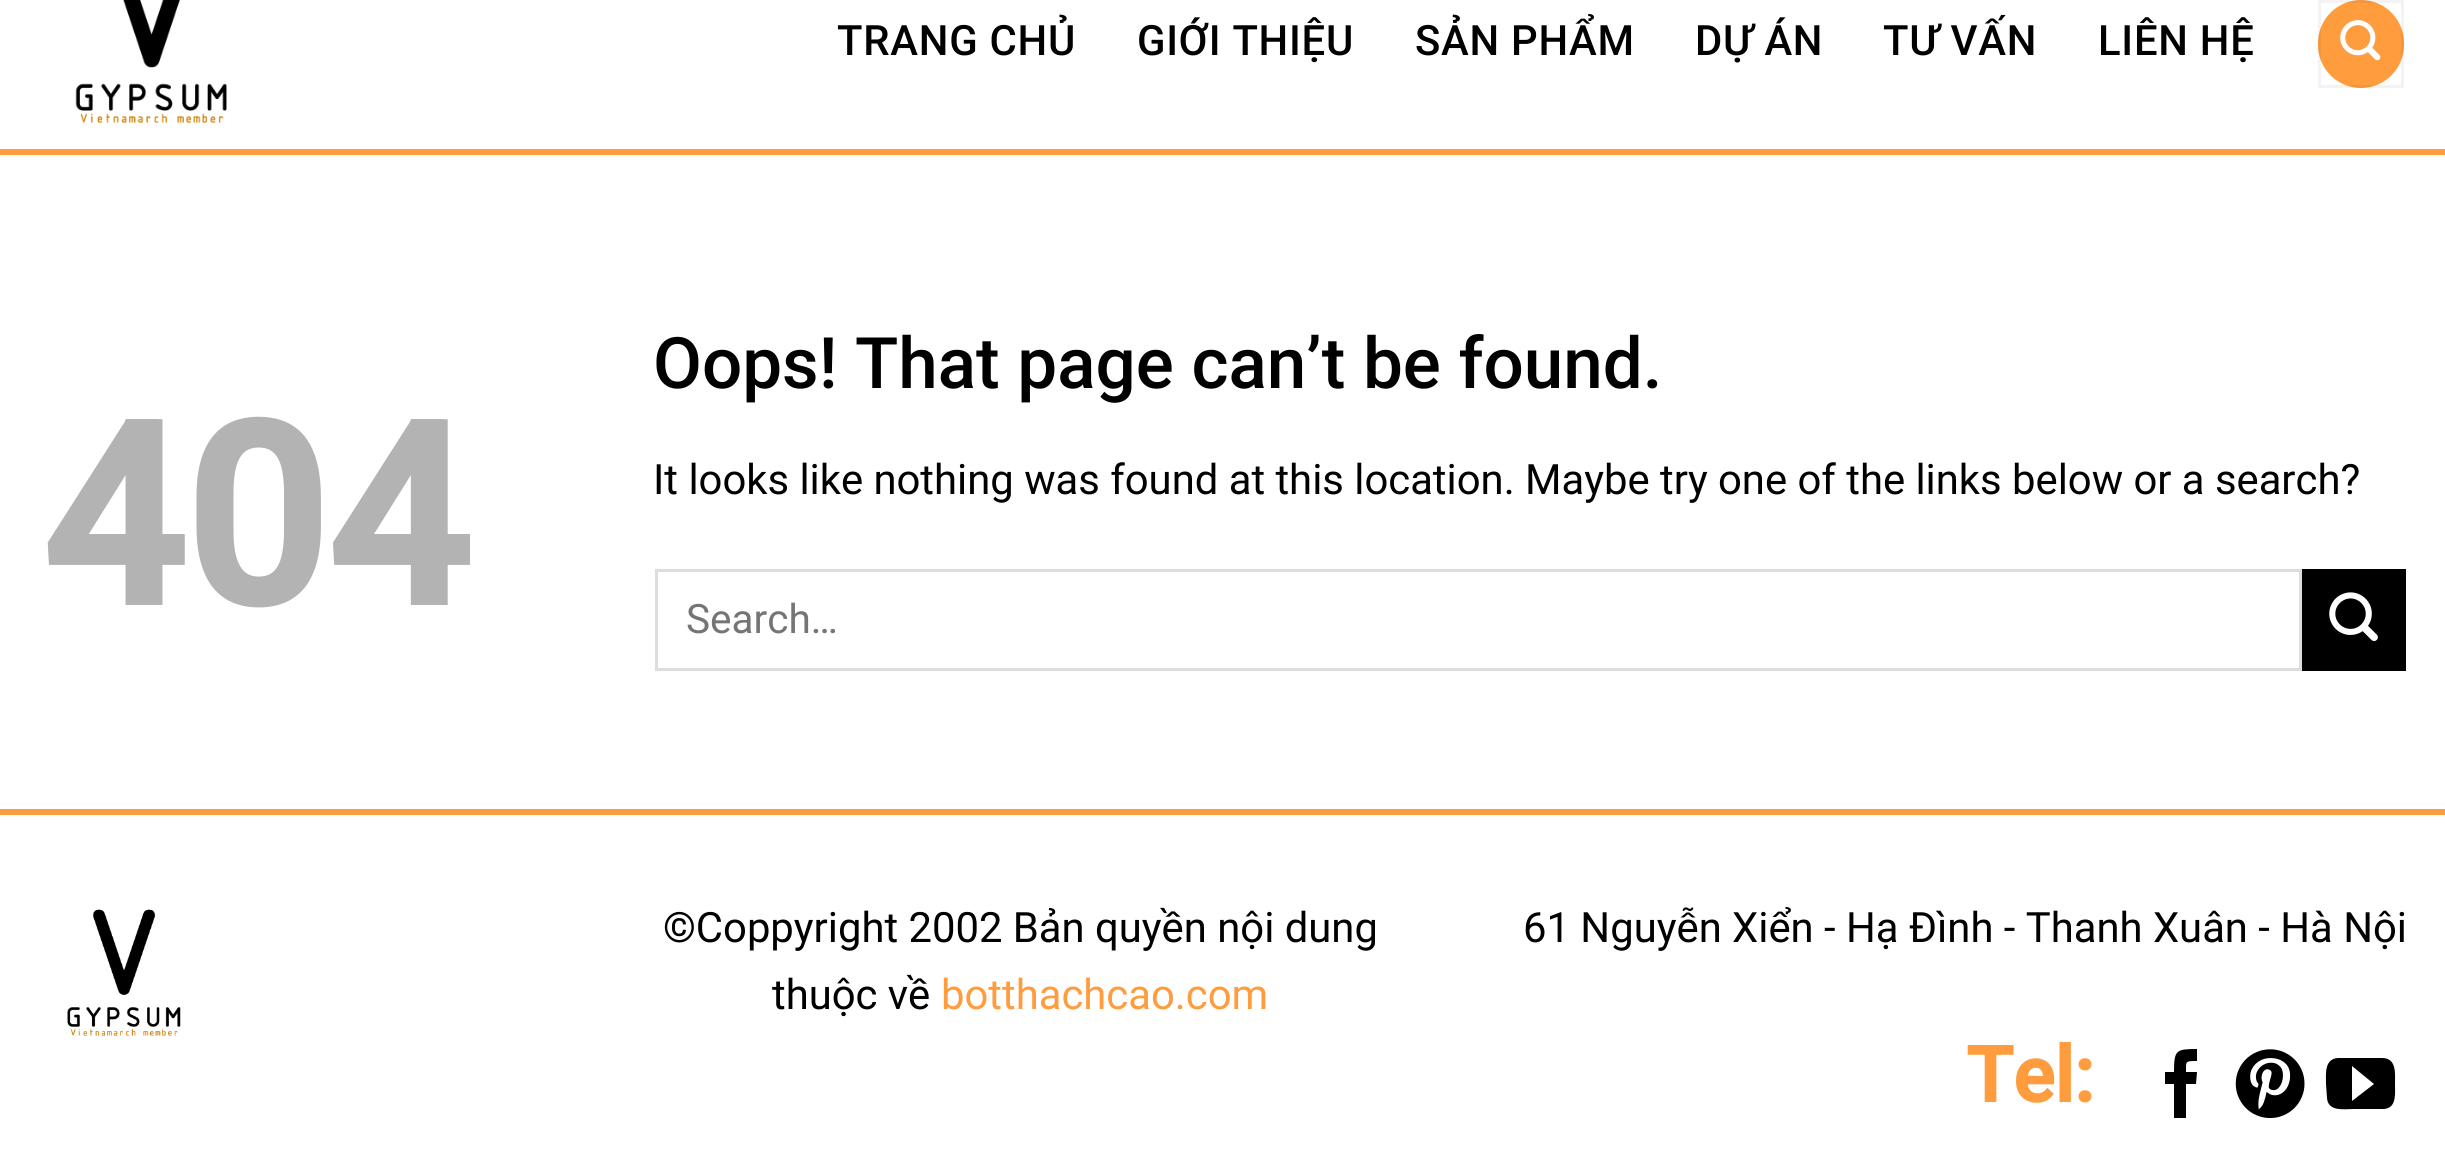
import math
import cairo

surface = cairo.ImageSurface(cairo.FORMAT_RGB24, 2445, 1171)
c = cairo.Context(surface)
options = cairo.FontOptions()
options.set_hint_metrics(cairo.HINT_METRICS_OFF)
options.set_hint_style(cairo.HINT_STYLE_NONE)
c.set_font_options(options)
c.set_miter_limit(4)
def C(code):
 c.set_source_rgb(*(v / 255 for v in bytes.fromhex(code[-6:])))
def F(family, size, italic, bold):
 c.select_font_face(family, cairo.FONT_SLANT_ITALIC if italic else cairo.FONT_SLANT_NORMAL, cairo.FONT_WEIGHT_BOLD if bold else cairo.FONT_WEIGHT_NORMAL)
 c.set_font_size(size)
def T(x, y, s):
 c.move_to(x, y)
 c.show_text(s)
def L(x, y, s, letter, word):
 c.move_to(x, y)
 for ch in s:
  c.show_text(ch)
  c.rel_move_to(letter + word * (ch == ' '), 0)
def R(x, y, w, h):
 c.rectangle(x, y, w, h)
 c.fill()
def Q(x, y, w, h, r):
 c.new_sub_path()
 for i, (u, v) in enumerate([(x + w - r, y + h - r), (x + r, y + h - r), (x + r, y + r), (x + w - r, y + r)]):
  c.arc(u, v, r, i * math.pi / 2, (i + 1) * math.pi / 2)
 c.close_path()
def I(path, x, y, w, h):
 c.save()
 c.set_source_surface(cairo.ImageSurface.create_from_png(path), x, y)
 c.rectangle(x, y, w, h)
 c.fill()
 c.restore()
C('ffffff')
c.paint()
C('ff9c3e')
R(0,149,2445,6)
I('1.png',75,0,152,123)
F('Roboto Medium',41.8,0,0)
C('000000')
L(837,55,'TRANG CHỦ',.75,0)
L(1137,55,'GIỚI THIỆU',.75,0)
L(1415,55,'SẢN PHẨM',.75,0)
L(1695,55,'DỰ ÁN',.75,0)
L(1883,55,'TƯ VẤN',.75,0)
L(2098,55,'LIÊN HỆ',.75,0)
C('ff9c3e')
Q(2318,0,86,88,43)
c.fill()
c.rectangle(2319.5,1.5,83,85)
c.set_source_rgba(0,0,0,0.05)
c.set_line_width(3)
c.stroke()
I('2.png',2340,20,41,41)
F('Roboto',251,0,1)
C('b3b3b3')
T(41,605,'404')
F('Roboto Medium',71,0,0)
C('000000')
T(653,388,'Oops! That page can’t be found.')
F('Roboto',41.8,0,0)
T(653,494,'It looks like nothing was found at this location. Maybe try one of the links below or a search?')
c.rectangle(656.5,570.5,1644,99)
C('dddddd')
c.stroke()
F('Roboto',40.5,0,0)
C('757575')
T(686,633,'Search…')
C('000000')
R(2302,569,104,102)
I('3.png',2329,592,49,49)
C('ff9c3e')
R(0,809,2445,6)
I('4.png',67,909,114,127)
F('Roboto',41.8,0,0)
C('000000')
T(663,942,'©Coppyright 2002 Bản quyền nội dung')
T(772,1009,'thuộc về')
C('ff9c3e')
T(941,1009,'botthachcao.com')
C('000000')
T(1523,942,'61 Nguyễn Xiển - Hạ Đình - Thanh Xuân - Hà Nội')
F('Roboto',77,0,1)
C('ff9c3e')
T(1966,1102,'Tel:')
C('000000')
c.new_path()
c.move_to(2186,1118)
c.line_to(2174,1118)
c.line_to(2174,1084)
c.line_to(2165,1084)
c.line_to(2165,1072)
c.line_to(2174,1072)
c.curve_to(2174,1050,2176,1049,2197,1049)
c.line_to(2197,1061)
c.curve_to(2185,1061,2186,1061,2186,1072)
c.line_to(2197,1072)
c.line_to(2196,1084)
c.line_to(2186,1084)
c.close_path()
c.fill()
I('5.png',2235,1049,70,70)
c.new_path()
c.move_to(2382,1058)
c.line_to(2338,1058)
c.curve_to(2324,1059,2326,1074,2326,1084)
c.line_to(2327,1098)
c.curve_to(2328,1112,2344,1109,2354,1109)
c.line_to(2384,1109)
c.curve_to(2397,1108,2395,1093,2395,1084)
c.curve_to(2395,1074,2397,1058,2382,1058)
c.close_path()
c.move_to(2352,1101)
c.line_to(2352,1066)
c.line_to(2374,1084)
c.close_path()
c.fill()
surface.write_to_png('o.png')
